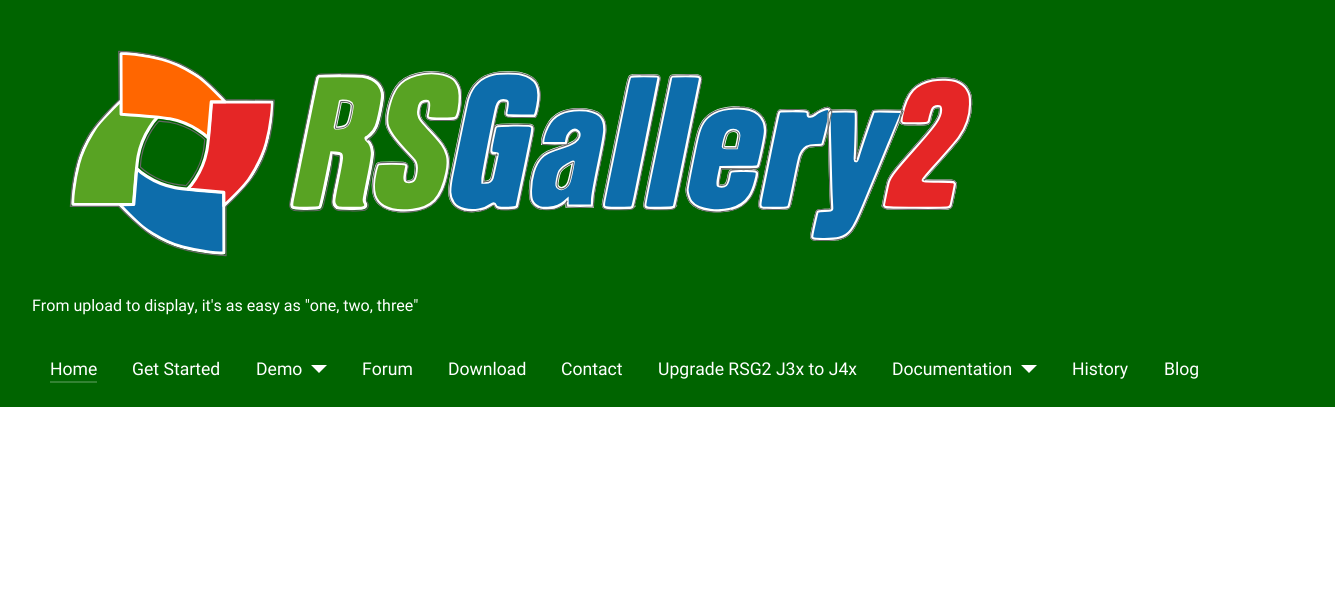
import math
import cairo

surface = cairo.ImageSurface(cairo.FORMAT_RGB24, 1335, 606)
c = cairo.Context(surface)
options = cairo.FontOptions()
options.set_hint_metrics(cairo.HINT_METRICS_OFF)
options.set_hint_style(cairo.HINT_STYLE_NONE)
c.set_font_options(options)
c.set_miter_limit(4)
def C(code):
 c.set_source_rgb(*(v / 255 for v in bytes.fromhex(code[-6:])))
def F(family, size, italic, bold):
 c.select_font_face(family, cairo.FONT_SLANT_ITALIC if italic else cairo.FONT_SLANT_NORMAL, cairo.FONT_WEIGHT_BOLD if bold else cairo.FONT_WEIGHT_NORMAL)
 c.set_font_size(size)
def T(x, y, s):
 c.move_to(x, y)
 c.show_text(s)
def R(x, y, w, h):
 c.rectangle(x, y, w, h)
 c.fill()
def I(path, x, y, w, h):
 c.save()
 c.set_source_surface(cairo.ImageSurface.create_from_png(path), x, y)
 c.rectangle(x, y, w, h)
 c.fill()
 c.restore()
C('ffffff')
c.paint()
C('006400')
R(0,0,1335,407)
I('1.png',69,50,904,207)
F('Roboto',16,0,0)
C('ffffff')
T(32,311,'From upload to display, it\'s as easy as "one, two, three"')
F('Roboto',17.6,0,0)
T(50,375,'Home')
C('338333')
R(50,381,47,2)
C('ffffff')
T(132,375,'Get Started')
T(256,375,'Demo')
c.new_path()
c.move_to(311,365)
c.line_to(327,365)
c.line_to(319,373)
c.close_path()
c.fill()
T(362,375,'Forum')
T(448,375,'Download')
T(561,375,'Contact')
T(658,375,'Upgrade RSG2 J3x to J4x')
T(892,375,'Documentation')
c.new_path()
c.move_to(1021,365)
c.line_to(1037,365)
c.line_to(1029,373)
c.close_path()
c.fill()
T(1072,375,'History')
T(1164,375,'Blog')
surface.write_to_png('o.png')
